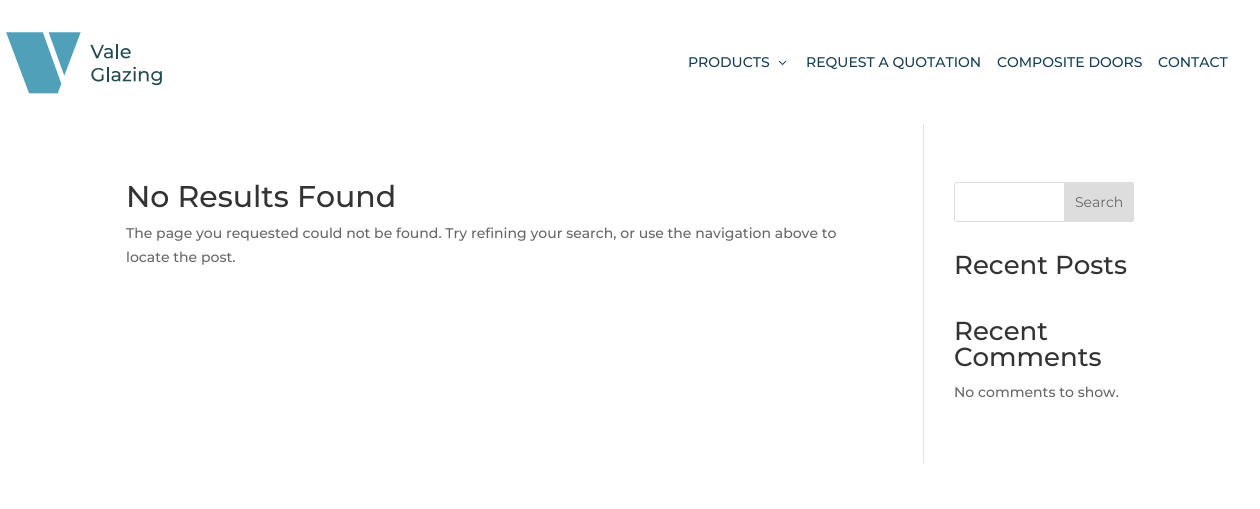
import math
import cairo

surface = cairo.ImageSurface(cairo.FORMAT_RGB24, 1260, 509)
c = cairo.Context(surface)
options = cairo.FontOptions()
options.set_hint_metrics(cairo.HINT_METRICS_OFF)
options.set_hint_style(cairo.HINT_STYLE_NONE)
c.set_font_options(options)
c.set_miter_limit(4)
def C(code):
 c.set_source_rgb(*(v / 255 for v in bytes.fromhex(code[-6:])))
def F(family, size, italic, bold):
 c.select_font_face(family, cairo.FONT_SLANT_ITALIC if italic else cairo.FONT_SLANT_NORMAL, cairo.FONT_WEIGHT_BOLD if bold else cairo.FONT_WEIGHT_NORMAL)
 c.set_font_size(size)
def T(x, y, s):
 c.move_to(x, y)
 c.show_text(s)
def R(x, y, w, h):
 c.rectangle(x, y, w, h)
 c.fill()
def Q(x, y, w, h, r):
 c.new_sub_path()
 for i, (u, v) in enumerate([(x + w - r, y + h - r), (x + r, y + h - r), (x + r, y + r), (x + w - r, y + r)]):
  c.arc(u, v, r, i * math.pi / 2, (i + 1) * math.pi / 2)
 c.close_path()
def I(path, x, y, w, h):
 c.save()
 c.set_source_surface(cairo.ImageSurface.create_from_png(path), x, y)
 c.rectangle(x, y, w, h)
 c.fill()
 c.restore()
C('ffffff')
c.paint()
I('1.png',6,32,156,62)
F('Montserrat Medium',14,0,0)
C('153d56')
T(688,67,'PRODUCTS')
I('2.png',778,60,9,5)
T(806,67,'REQUEST A QUOTATION')
T(997,67,'COMPOSITE DOORS')
T(1158,67,'CONTACT')
C('e2e2e2')
R(923,124,1,339)
F('Montserrat Medium',30,0,0)
C('333333')
T(126,207,'No Results Found')
F('Montserrat Medium',14,0,0)
C('666666')
T(126,238,'The page you requested could not be found. Try refining your search, or use the navigation above to')
T(126,262,'locate the post.')
Q(954.5,182.5,179,39,2.5)
C('dddddd')
c.set_line_width(1)
c.stroke()
c.new_path()
c.move_to(1064.5,182.5)
c.line_to(1131,182.5)
c.curve_to(1132.5,182.5,1133.5,183.5,1133.5,185)
c.line_to(1133.5,219)
c.curve_to(1133.5,220.5,1132.5,221.5,1131,221.5)
c.line_to(1064.5,221.5)
c.close_path()
c.fill_preserve()
c.stroke()
F('Montserrat',14,0,0)
C('666666')
T(1075,207,'Search')
F('Montserrat Medium',26,0,0)
C('333333')
T(954,274,'Recent Posts')
T(954,340,'Recent')
T(954,366,'Comments')
F('Montserrat Medium',14,0,0)
C('666666')
T(954,397,'No comments to show.')
surface.write_to_png('o.png')
